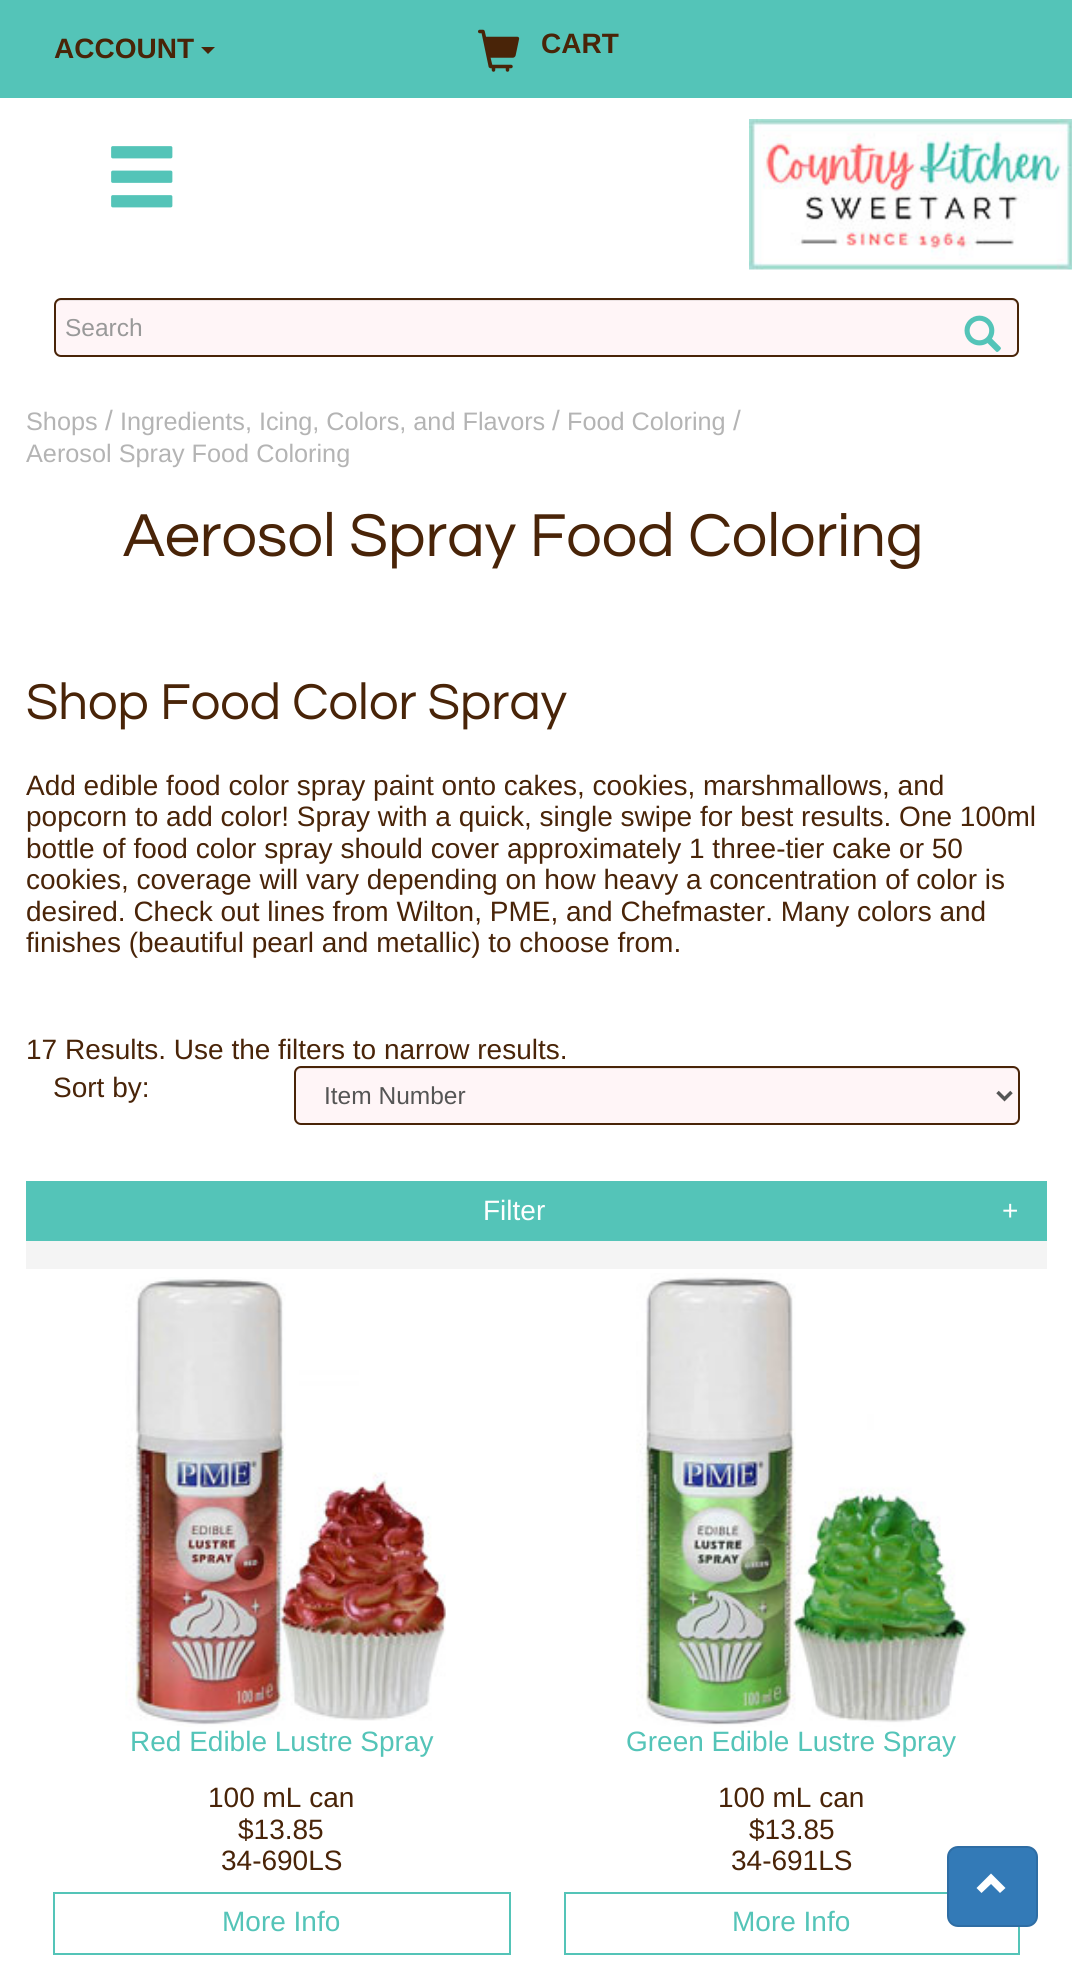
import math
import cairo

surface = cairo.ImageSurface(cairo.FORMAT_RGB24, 1072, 1961)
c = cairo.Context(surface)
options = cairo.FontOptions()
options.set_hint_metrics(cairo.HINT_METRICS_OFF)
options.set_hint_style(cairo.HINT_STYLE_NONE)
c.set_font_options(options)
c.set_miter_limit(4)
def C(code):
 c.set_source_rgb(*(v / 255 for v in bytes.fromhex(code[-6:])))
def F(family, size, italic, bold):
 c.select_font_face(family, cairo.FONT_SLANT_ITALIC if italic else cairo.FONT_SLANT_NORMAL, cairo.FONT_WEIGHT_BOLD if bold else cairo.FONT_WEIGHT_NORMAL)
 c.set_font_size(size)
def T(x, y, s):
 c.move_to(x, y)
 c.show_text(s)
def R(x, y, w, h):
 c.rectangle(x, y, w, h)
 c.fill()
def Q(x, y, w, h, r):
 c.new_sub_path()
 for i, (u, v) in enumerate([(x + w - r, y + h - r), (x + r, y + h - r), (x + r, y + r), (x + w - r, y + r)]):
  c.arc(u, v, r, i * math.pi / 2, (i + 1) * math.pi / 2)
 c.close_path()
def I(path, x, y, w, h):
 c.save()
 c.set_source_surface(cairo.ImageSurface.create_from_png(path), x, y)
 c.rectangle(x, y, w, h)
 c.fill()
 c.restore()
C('ffffff')
c.paint()
C('54c4b8')
R(0,0,1072,98)
F('Liberation Sans',28,0,1)
C('492408')
T(54,58,'ACCOUNT')
c.new_path()
c.move_to(201,47)
c.line_to(215,47)
c.line_to(208,54)
c.close_path()
c.fill()
I('1.png',478,29,42,43)
T(541,53,'CART')
I('2.png',111,146,62,62)
I('3.png',749,119,323,151)
C('fff5f7')
Q(54,298,965,59,7)
c.fill()
C('ece3e4')
c.new_path()
c.move_to(61,301)
c.line_to(1012,301)
c.curve_to(1014,301,1017,303,1017,306)
c.line_to(1017,304)
c.curve_to(1017,301,1015,299,1012,299)
c.line_to(61,299)
c.curve_to(58,299,56,301,56,304)
c.line_to(56,306)
c.curve_to(56,303,58,301,61,301)
c.close_path()
c.fill()
Q(55,299,963,57,6)
C('492408')
c.stroke()
F('Liberation Sans',24.5,0,0)
C('999999')
T(65,336,'Search')
I('4.png',964,315,37,37)
F('Liberation Sans',25.25,0,0)
C('b4b4b4')
T(26,430,'Shops')
F('Liberation Sans',28,0,0)
T(105,430,'/')
F('Liberation Sans',25.25,0,0)
T(120,430,'Ingredients, Icing, Colors, and Flavors')
F('Liberation Sans',28,0,0)
T(552,430,'/')
F('Liberation Sans',25.25,0,0)
T(567,430,'Food Coloring')
F('Liberation Sans',28,0,0)
T(733,430,'/')
F('Liberation Sans',25.25,0,0)
T(26,462,'Aerosol Spray Food Coloring')
F('Questrial',63,0,0)
C('492408')
T(123,556,'Aerosol Spray Food Coloring')
F('Questrial',52.5,0,0)
T(26,719,'Shop Food Color Spray')
F('Liberation Sans',28,0,0)
T(26,795,'Add edible food color spray paint onto cakes, cookies, marshmallows, and')
T(26,826,'popcorn to add color! Spray with a quick, single swipe for best results. One 100ml')
T(26,858,'bottle of food color spray should cover approximately 1 three-tier cake or 50')
T(26,889,'cookies, coverage will vary depending on how heavy a concentration of color is')
T(26,921,'desired. Check out lines from Wilton, PME, and Chefmaster. Many colors and')
T(26,952,'finishes (beautiful pearl and metallic) to choose from.')
T(26,1059,'17 Results. Use the filters to narrow results.')
T(53,1097,'Sort by:')
C('fff5f7')
Q(294,1066,726,59,7)
c.fill()
C('ece3e4')
c.new_path()
c.move_to(301,1069)
c.line_to(1013,1069)
c.curve_to(1016,1069,1018,1072,1018,1074)
c.line_to(1018,1120)
c.line_to(1017,1123)
c.curve_to(1018,1122,1019,1120,1019,1119)
c.line_to(1019,1073)
c.curve_to(1019,1070,1017,1068,1014,1068)
c.line_to(301,1068)
c.curve_to(298,1068,296,1070,296,1073)
c.line_to(296,1074)
c.curve_to(296,1072,298,1069,301,1069)
c.close_path()
c.fill()
Q(295,1067,724,57,6)
C('492408')
c.stroke()
c.new_path()
c.move_to(997.5,1092)
c.line_to(1004.5,1099)
c.line_to(1011.5,1092)
C('555555')
c.set_line_width(3.5)
c.stroke()
F('Liberation Sans',24.5,0,0)
T(324,1104,'Item Number')
C('f4f4f4')
R(26,1241,1021,28)
C('54c4b8')
R(26,1181,1021,60)
F('Liberation Sans',28,0,0)
C('ffffff')
T(483,1220,'Filter')
T(1002,1220,'+')
I('5.png',125,1277,321,450)
C('54c4b8')
T(130,1751,'Red Edible Lustre Spray')
C('492408')
T(208,1807,'100 mL can')
T(238,1839,'$13.85')
T(221,1870,'34-690LS')
c.rectangle(54,1893,456,61)
C('54c4b8')
c.set_line_width(2)
c.stroke()
T(222,1931,'More Info')
I('6.png',636,1273,334,454)
T(626,1751,'Green Edible Lustre Spray')
C('492408')
T(718,1807,'100 mL can')
T(749,1839,'$13.85')
T(731,1870,'34-691LS')
c.rectangle(565,1893,454,61)
C('54c4b8')
c.stroke()
T(732,1931,'More Info')
C('337ab7')
Q(948,1847,89,79,10)
c.fill_preserve()
C('2e6da4')
c.stroke()
C('ffffff')
c.new_path()
c.move_to(1005.5,1888)
c.line_to(1000,1893)
c.line_to(991,1884)
c.line_to(981.5,1893)
c.line_to(976.5,1888)
c.line_to(991,1873.5)
c.close_path()
c.fill()
surface.write_to_png('o.png')
